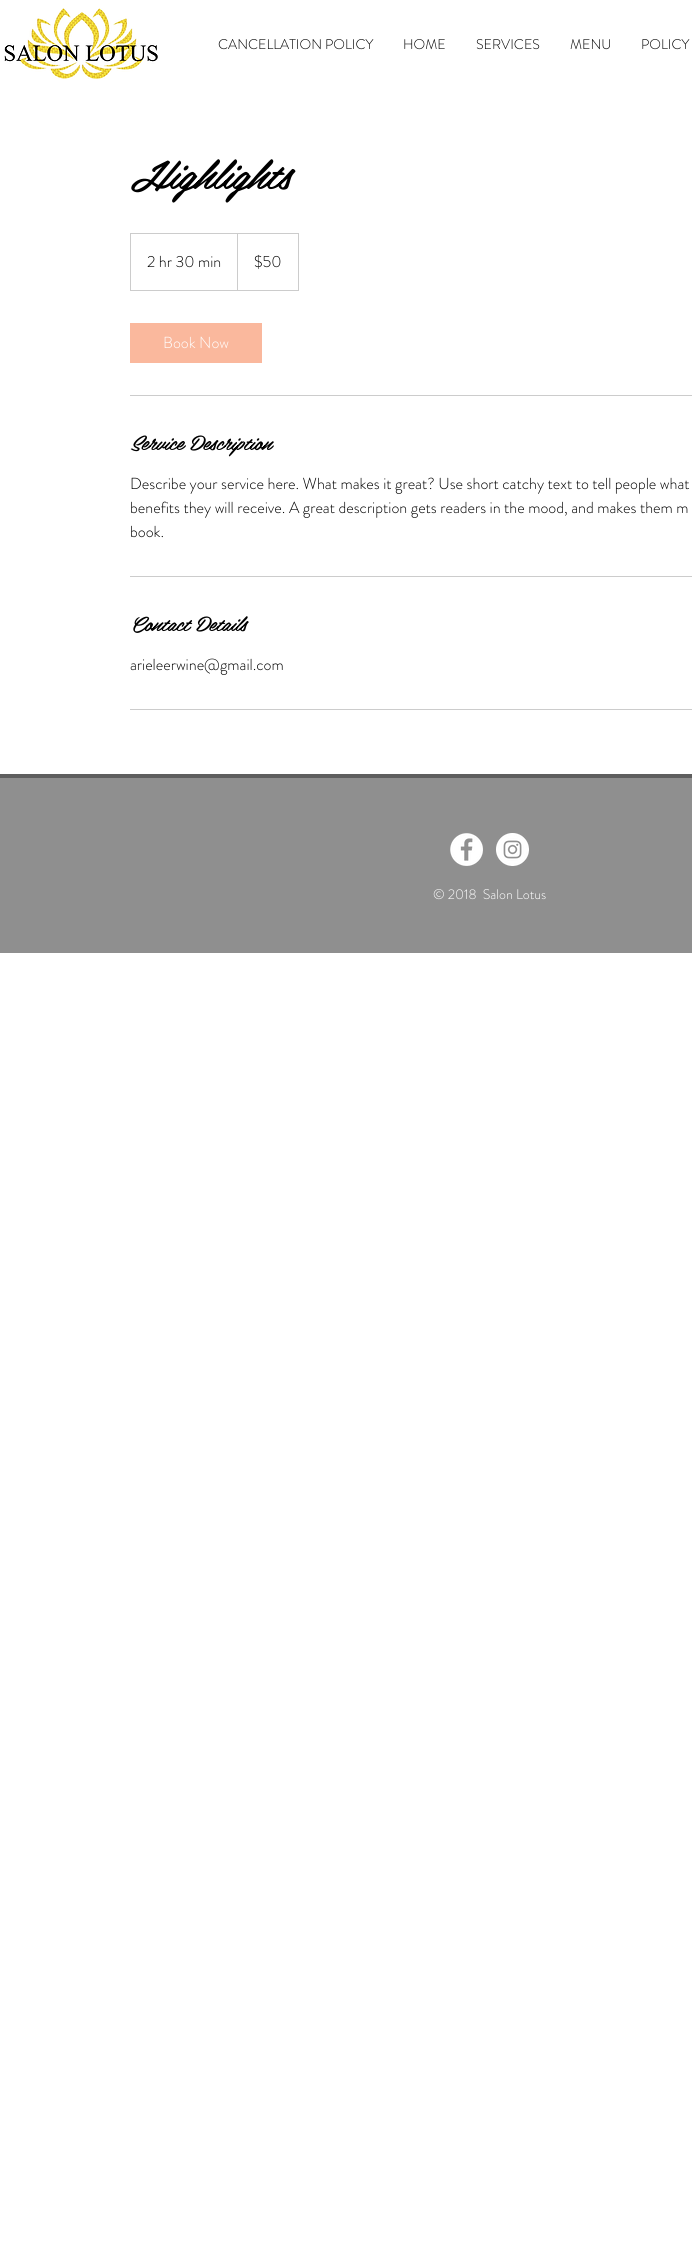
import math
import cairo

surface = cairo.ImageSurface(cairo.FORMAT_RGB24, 692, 2262)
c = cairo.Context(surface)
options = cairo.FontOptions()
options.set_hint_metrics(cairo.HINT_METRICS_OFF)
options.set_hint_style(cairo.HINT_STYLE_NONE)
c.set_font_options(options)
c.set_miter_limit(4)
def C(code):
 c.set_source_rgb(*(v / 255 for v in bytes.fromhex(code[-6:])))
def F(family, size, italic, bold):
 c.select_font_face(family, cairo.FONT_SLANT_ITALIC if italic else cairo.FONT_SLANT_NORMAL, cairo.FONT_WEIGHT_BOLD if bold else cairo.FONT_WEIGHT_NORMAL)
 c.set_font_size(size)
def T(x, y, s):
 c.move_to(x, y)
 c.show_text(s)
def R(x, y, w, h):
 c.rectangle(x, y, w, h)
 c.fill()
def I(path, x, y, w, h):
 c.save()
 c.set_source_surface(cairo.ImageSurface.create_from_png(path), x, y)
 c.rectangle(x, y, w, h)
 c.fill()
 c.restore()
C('ffffff')
c.paint()
I('1.png',4,8,154,71)
F('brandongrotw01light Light',14,0,0)
C('000000')
T(218,49,'CANCELLATION POLICY')
T(403,49,'HOME')
T(476,49,'SERVICES')
T(570,49,'MENU')
T(641,49,'POLICY')
F('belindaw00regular',40,1,0)
T(130,189,'Highlights')
c.rectangle(130.5,233.5,168,57)
C('cccccc')
c.set_line_width(1)
c.stroke()
F('brandongrotw01light Light',16,0,0)
C('000000')
T(147,267,'2 hr 30 min')
C('cccccc')
c.new_path()
c.move_to(237,290)
c.line_to(237,233)
c.line_to(238,234)
c.line_to(238,290)
c.close_path()
c.fill()
C('000000')
T(254,267,'$50')
C('fab89d')
R(130,323,132,40)
C('ffffff')
T(163,348,'Book Now')
C('cccccc')
R(130,395,562,1)
F('belindaw00regular',20,1,0)
C('000000')
T(130,450,'Service Description')
F('brandongrotw01light Light',16,0,0)
T(130,489,'Describe your service here. What makes it great? Use short catchy text to tell people what')
T(130,513,'benefits they will receive. A great description gets readers in the mood, and makes them m')
T(130,537,'book.')
C('cccccc')
R(130,576,562,1)
F('belindaw00regular',20,1,0)
C('000000')
T(130,631,'Contact Details')
F('brandongrotw01light Light',16,0,0)
T(130,670,'arieleerwine@gmail.com')
C('cccccc')
R(130,709,562,1)
C('8f8f8f')
R(0,778,692,175)
C('5e5e5e')
R(0,774,692,4)
I('2.png',450,833,33,33)
I('3.png',496,833,33,33)
F('brandongrotw01light Light',14,0,0)
C('ffffff')
T(433,899,'© 2018  Salon Lotus')
surface.write_to_png('o.png')
